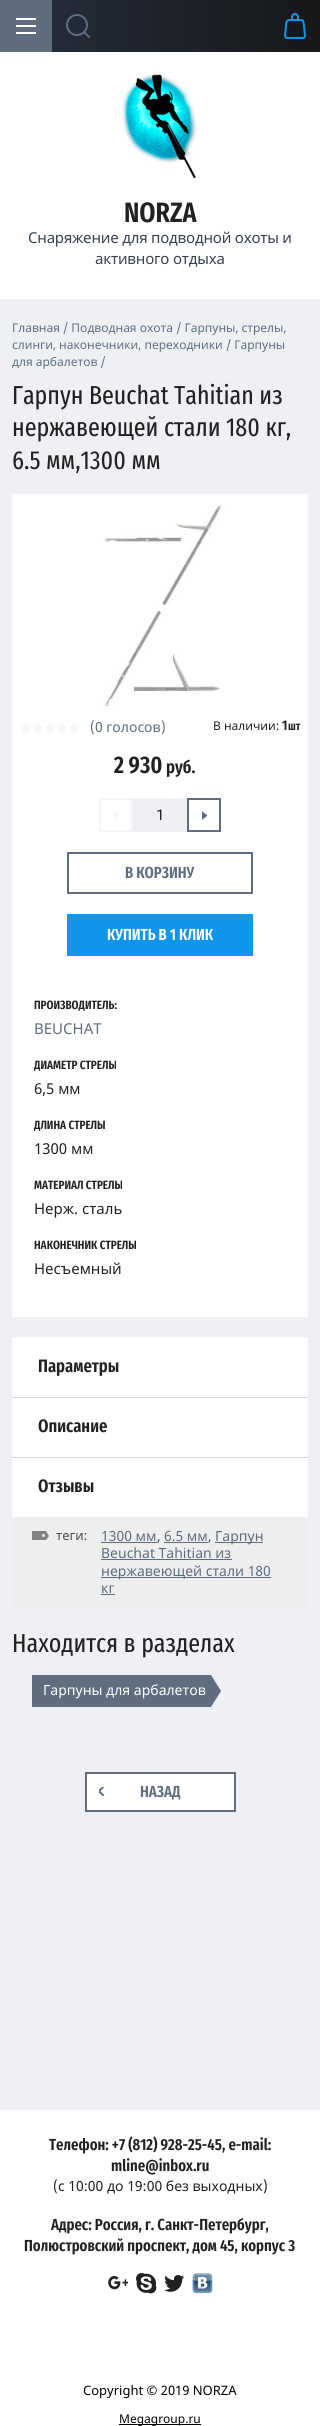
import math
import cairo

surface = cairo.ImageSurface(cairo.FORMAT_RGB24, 320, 2426)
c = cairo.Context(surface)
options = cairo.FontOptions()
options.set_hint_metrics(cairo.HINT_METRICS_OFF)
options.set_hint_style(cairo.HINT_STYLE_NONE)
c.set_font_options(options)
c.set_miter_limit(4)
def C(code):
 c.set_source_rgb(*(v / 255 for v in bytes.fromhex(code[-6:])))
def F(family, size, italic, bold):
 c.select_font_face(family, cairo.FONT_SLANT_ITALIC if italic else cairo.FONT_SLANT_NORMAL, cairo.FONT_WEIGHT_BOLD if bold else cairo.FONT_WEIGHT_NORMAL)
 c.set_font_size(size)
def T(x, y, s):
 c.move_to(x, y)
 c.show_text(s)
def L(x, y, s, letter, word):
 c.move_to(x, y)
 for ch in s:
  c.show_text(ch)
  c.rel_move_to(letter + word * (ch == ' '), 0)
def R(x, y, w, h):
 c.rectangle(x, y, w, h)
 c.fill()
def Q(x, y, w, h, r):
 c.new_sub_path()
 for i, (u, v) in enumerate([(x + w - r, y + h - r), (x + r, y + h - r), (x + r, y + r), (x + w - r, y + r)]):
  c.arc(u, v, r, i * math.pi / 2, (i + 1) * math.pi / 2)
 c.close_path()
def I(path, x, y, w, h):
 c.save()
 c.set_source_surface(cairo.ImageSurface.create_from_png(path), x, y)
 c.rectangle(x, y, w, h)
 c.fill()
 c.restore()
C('ffffff')
c.paint()
gradient = cairo.LinearGradient(320,26,0,26)
gradient.add_color_stop_rgba(0,0.086,0.09,0.094,1)
gradient.add_color_stop_rgba(1,0.153,0.184,0.247,1)
c.set_source(gradient)
R(52,0,268,52)
C('5f6d7f')
R(0,0,52,52)
C('ffffff')
R(16,25,20,2)
R(16,18,20,2)
R(16,32,20,2)
I('1.png',66,14,24,24)
I('2.png',284,13,22,26)
I('3.png',120,74,77,105)
F('Fira Sans Extra Condensed SemiBold',28,0,0)
C('212121')
T(124,222,'NORZA')
F('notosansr',15,0,0)
C('344050')
L(28,243,'Снаряжение для подводной охоты и',-.2,0)
L(95,264,'активного отдыха',-.2,0)
C('eef0f3')
R(0,299,320,1811)
F('notosansr',12,0,0)
C('5f6d7f')
T(12,332,'Главная / Подводная охота / Гарпуны, стрелы,')
T(12,349,'слинги, наконечники, переходники / Гарпуны')
T(12,366,'для арбалетов /')
F('Fira Sans Extra Condensed',26,0,0)
C('212121')
T(12,404,'Гарпун Beuchat Tahitian из')
T(12,436,'нержавеющей стали 180 кг,')
T(12,469,'6.5 мм,1300 мм')
C('ffffff')
Q(12,494,296,823,1)
c.fill()
I('4.png',60,502,208,208)
I('5.png',21,723,58,9)
F('notosansr',14,0,0)
C('5f6d7f')
T(90,732,'(0 голосов)')
F('notosansr',12,0,0)
C('212121')
T(213,730,'В наличии:')
F('Fira Sans Extra Condensed SemiBold',14,0,0)
T(282,730,'1')
F('Fira Sans Extra Condensed SemiBold',12,0,0)
T(288,730,'шт')
F('Fira Sans Extra Condensed SemiBold',24,0,0)
T(114,773,'2 930')
F('Fira Sans Extra Condensed SemiBold',18,0,0)
T(166,773,'руб.')
c.rectangle(100,799,32,32)
C('f5f5f6')
c.stroke()
c.new_path()
c.move_to(112.5,815.5)
c.line_to(118,820)
c.line_to(118,811)
c.close_path()
c.fill()
C('eef0f3')
Q(133.5,798.5,53,33,.5)
c.fill_preserve()
c.set_line_width(1)
c.stroke()
F('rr',15,0,0)
C('212121')
T(156,820,'1')
c.rectangle(188,799,32,32)
C('5f6d7f')
c.set_line_width(2)
c.stroke()
c.new_path()
c.move_to(207.5,815.5)
c.line_to(202,811)
c.line_to(202,820)
c.close_path()
c.fill()
c.rectangle(68,853,184,40)
c.stroke()
F('Fira Sans Extra Condensed SemiBold',16,0,0)
T(125,878,'В КОРЗИНУ')
C('0f95ec')
Q(67,914,186,42,1)
c.fill()
C('ffffff')
T(107,940,'КУПИТЬ В 1 КЛИК')
F('Fira Sans Extra Condensed SemiBold',12,0,0)
C('212121')
T(34,1009,'ПРОИЗВОДИТЕЛЬ:')
F('notosansr',15,0,0)
C('5f6d7f')
T(34,1034,'BEUCHAT')
F('Fira Sans Extra Condensed SemiBold',12,0,0)
C('212121')
T(34,1069,'ДИАМЕТР СТРЕЛЫ')
F('notosansr',15,0,0)
T(34,1094,'6,5 мм')
F('Fira Sans Extra Condensed SemiBold',12,0,0)
T(34,1129,'ДЛИНА СТРЕЛЫ')
F('notosansr',15,0,0)
T(34,1154,'1300 мм')
F('Fira Sans Extra Condensed SemiBold',12,0,0)
T(34,1189,'МАТЕРИАЛ СТРЕЛЫ')
F('notosansr',15,0,0)
T(34,1214,'Нерж. сталь')
F('Fira Sans Extra Condensed SemiBold',12,0,0)
T(34,1249,'НАКОНЕЧНИК СТРЕЛЫ')
F('notosansr',15,0,0)
T(34,1274,'Несъемный')
C('ffffff')
Q(12,1337,296,270,1)
c.fill()
F('Fira Sans Extra Condensed SemiBold',18,0,0)
C('212121')
T(38,1372,'Параметры')
C('d5d5d5')
R(12,1397,296,1)
C('212121')
T(38,1432,'Описание')
C('d5d5d5')
R(12,1457,296,1)
C('212121')
T(38,1492,'Отзывы')
C('eeeeee')
R(12,1517,296,90)
I('6.png',32,1531,17,9)
F('notosansr',13,0,0)
C('4a4a4a')
T(56,1540,'теги:')
F('notosansr',14,0,0)
C('5f6d7f')
T(101,1541,'1300 мм')
R(101,1542,56,1)
C('4a4a4a')
T(157,1541,',')
C('5f6d7f')
T(164,1541,'6.5 мм')
R(164,1542,44,1)
C('4a4a4a')
T(208,1541,',')
C('5f6d7f')
R(215,1542,48,1)
T(215,1541,'Гарпун')
T(101,1558,'Beuchat Tahitian из')
R(101,1559,131,1)
R(101,1577,170,1)
T(101,1576,'нержавеющей стали 180')
T(101,1593,'кг')
R(101,1594,14,1)
F('Fira Sans Extra Condensed',26,0,0)
C('212121')
T(12,1652,'Находится в разделах')
C('5f6d7f')
R(32,1675,179,32)
F('notosansr',14,0,0)
C('ffffff')
T(43,1695,'Гарпуны для арбалетов')
C('5f6d7f')
c.new_path()
c.move_to(211,1707)
c.line_to(211,1675)
c.line_to(221,1691)
c.close_path()
c.fill()
C('ffffff')
c.rectangle(86,1773,149,38)
c.fill_preserve()
C('5f6d7f')
c.stroke()
I('7.png',99,1787,5,9)
F('Fira Sans Extra Condensed SemiBold',16,0,0)
T(140,1797,'НАЗАД')
C('212121')
T(49,2150,'Телефон: +7 (812) 928-25-45, e-mail:')
T(111,2171,'mline@inbox.ru')
F('notosansr',14,0,0)
T(53,2191,'(с 10:00 до 19:00 без выходных)')
F('Fira Sans Extra Condensed SemiBold',16,0,0)
T(51,2230,'Адрес: Россия, г. Санкт-Петербург,')
T(24,2251,'Полюстровский проспект, дом 45, корпус 3')
I('8.png',108,2276,20,14)
I('9.png',136,2273,21,21)
I('10.png',164,2275,20,17)
I('11.png',192,2273,21,21)
F('notosansr',13,0,0)
C('000000')
T(83,2395,'Copyright © 2019 NORZA')
R(119,2424,82,1)
F('notosansr',12,0,0)
T(119,2423,'Megagroup.ru')
surface.write_to_png('o.png')
